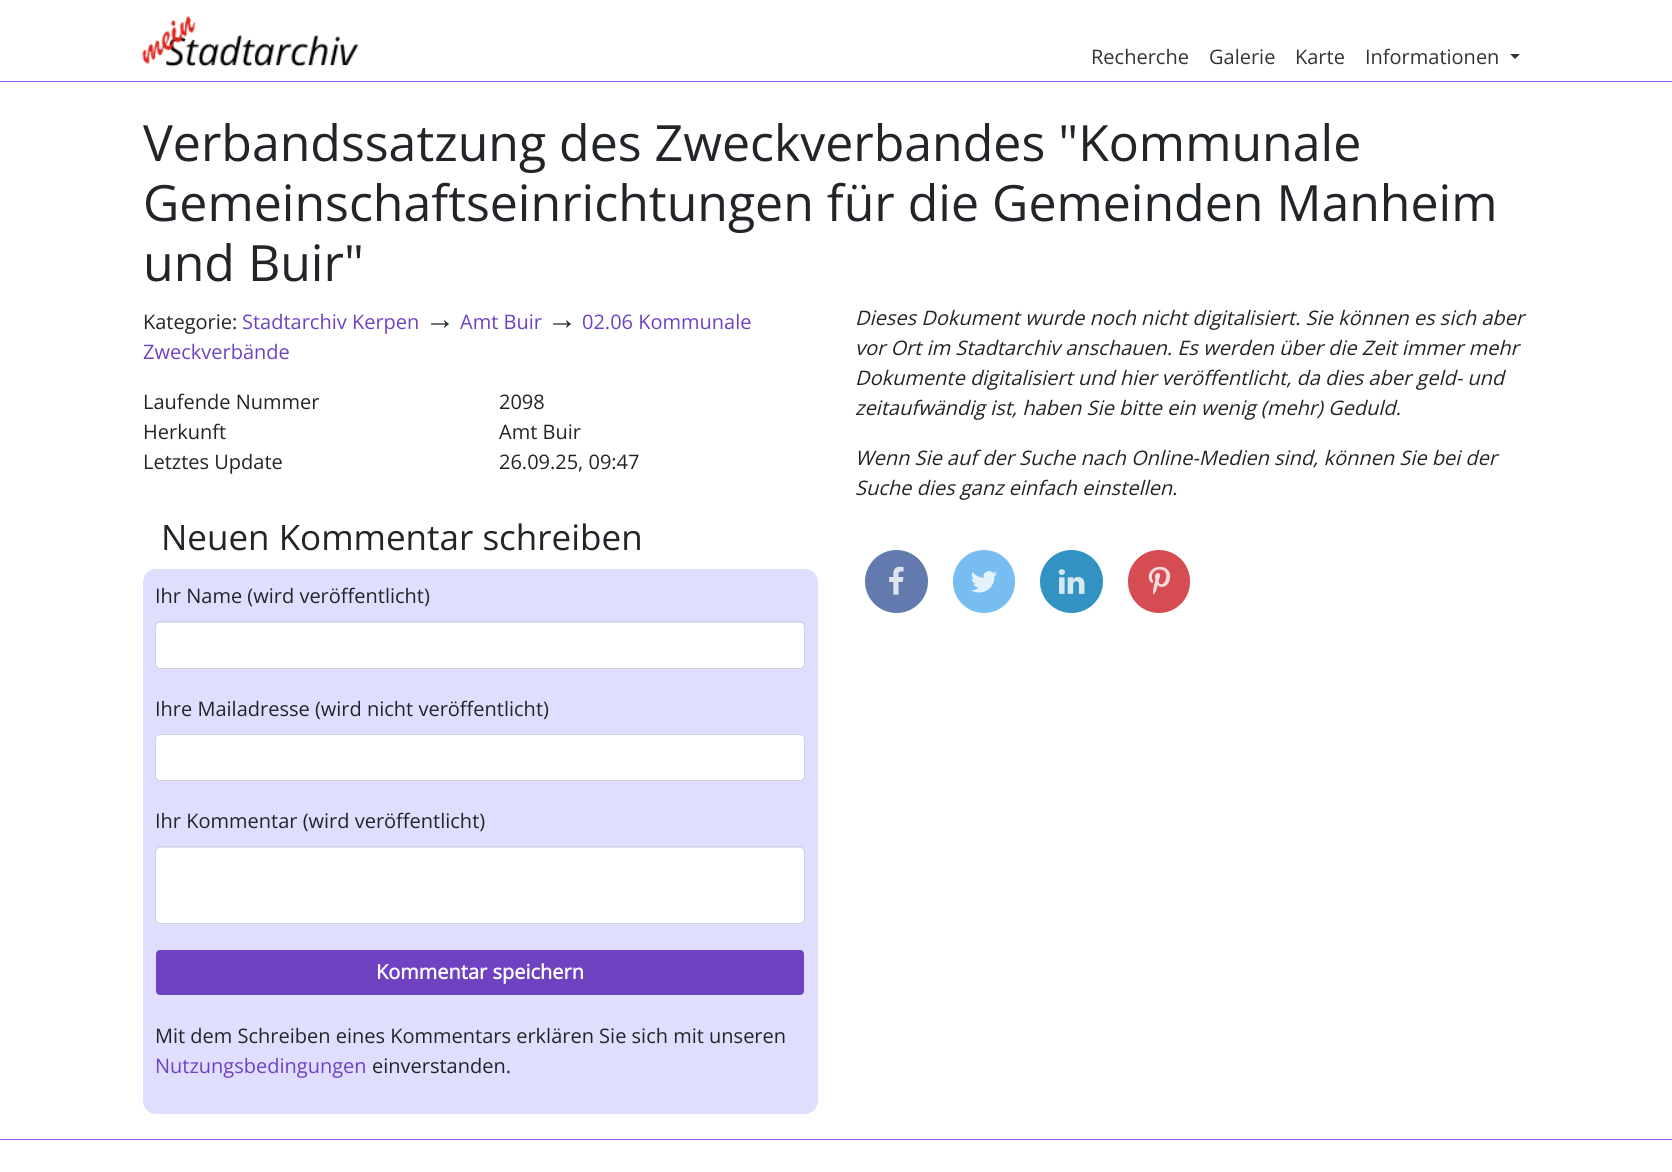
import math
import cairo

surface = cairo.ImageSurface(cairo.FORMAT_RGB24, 1672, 1172)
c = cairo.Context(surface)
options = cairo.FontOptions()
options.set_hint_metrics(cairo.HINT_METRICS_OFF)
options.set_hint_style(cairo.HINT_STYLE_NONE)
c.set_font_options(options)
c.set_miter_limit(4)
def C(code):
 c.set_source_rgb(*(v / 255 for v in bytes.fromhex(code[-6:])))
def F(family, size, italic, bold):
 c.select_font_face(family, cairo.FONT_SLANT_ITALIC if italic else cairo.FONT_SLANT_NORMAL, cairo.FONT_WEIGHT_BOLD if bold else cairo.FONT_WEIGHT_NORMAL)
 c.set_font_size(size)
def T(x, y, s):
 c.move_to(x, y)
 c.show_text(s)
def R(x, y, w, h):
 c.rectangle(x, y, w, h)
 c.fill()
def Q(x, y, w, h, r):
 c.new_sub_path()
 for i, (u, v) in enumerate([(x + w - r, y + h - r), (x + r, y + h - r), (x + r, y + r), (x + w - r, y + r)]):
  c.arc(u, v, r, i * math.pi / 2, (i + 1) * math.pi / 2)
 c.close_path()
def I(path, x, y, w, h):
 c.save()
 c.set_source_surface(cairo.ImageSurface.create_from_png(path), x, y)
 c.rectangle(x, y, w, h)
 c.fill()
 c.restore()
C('ffffff')
c.paint()
C('9658ea')
R(0,81,1672,1)
I('1.png',142,16,217,51)
F('Open Sans',20,0,0)
C('333333')
T(1091,64,'Recherche')
T(1209,64,'Galerie')
T(1295,64,'Karte')
T(1365,64,'Informationen')
c.new_path()
c.move_to(1510,54)
c.line_to(1520,54)
c.line_to(1515,59)
c.close_path()
c.fill()
F('Open Sans',50,0,0)
C('212529')
T(143,161,'Verbandssatzung des Zweckverbandes "Kommunale')
T(143,221,'Gemeinschaftseinrichtungen für die Gemeinden Manheim')
T(143,281,'und Buir"')
F('Open Sans',20,0,0)
T(143,329,'Kategorie:')
C('6f42c1')
T(242,329,'Stadtarchiv Kerpen')
F('Liberation Sans',30,0,1)
C('212529')
T(425,329,'→')
F('Open Sans',20,0,0)
C('6f42c1')
T(460,329,'Amt Buir')
F('Liberation Sans',30,0,1)
C('212529')
T(547,329,'→')
F('Open Sans',20,0,0)
C('6f42c1')
T(582,329,'02.06 Kommunale')
T(143,359,'Zweckverbände')
C('212529')
T(143,409,'Laufende Nummer')
T(499,409,'2098')
T(143,439,'Herkunft')
T(499,439,'Amt Buir')
T(143,469,'Letztes Update')
T(499,469,'26.09.25, 09:47')
F('Open Sans',35,0,0)
T(161,550,'Neuen Kommentar schreiben')
C('e0deff')
Q(143,569,675,545,13)
c.fill()
F('Open Sans',20,0,0)
C('212529')
T(155,603,'Ihr Name (wird veröffentlicht)')
C('ffffff')
Q(156,623,648,45,4)
c.fill()
Q(155.5,621.5,649,47,4.5)
C('ced4da')
c.set_line_width(1)
c.stroke()
C('212529')
T(155,716,'Ihre Mailadresse (wird nicht veröffentlicht)')
C('ffffff')
Q(155.5,734.5,649,46,4.5)
c.fill_preserve()
C('ced4da')
c.stroke()
C('212529')
T(155,828,'Ihr Kommentar (wird veröffentlicht)')
C('ffffff')
Q(156,848,648,75,4)
c.fill()
Q(155.5,846.5,649,77,4.5)
C('ced4da')
c.stroke()
C('6f42c1')
Q(156,950,648,45,4)
c.fill()
F('Open Sans',20,0,1)
C('ffffff')
T(376,979,'Kommentar speichern')
F('Open Sans',20,0,0)
C('212529')
T(155,1043,'Mit dem Schreiben eines Kommentars erklären Sie sich mit unseren')
C('6f42c1')
T(155,1073,'Nutzungsbedingungen')
C('212529')
T(372,1073,'einverstanden.')
F('Open Sans',20,1,0)
T(855,325,'Dieses Dokument wurde noch nicht digitalisiert. Sie können es sich aber')
T(855,355,'vor Ort im Stadtarchiv anschauen. Es werden über die Zeit immer mehr')
T(855,385,'Dokumente digitalisiert und hier veröffentlicht, da dies aber geld- und')
T(855,415,'zeitaufwändig ist, haben Sie bitte ein wenig (mehr) Geduld.')
T(855,465,'Wenn Sie auf der Suche nach Online-Medien sind, können Sie bei der')
T(855,495,'Suche dies ganz einfach einstellen.')
C('627aad')
c.new_path()
c.arc(896.5,581.5,31.5,0,2 * math.pi)
c.fill()
I('2.png',889,566,15,29)
C('77bdf1')
Q(953,550,62,63,31)
c.fill()
I('3.png',971,571,26,22)
C('3392c4')
c.arc(1071.5,581.5,31.5,0,2 * math.pi)
c.fill()
I('4.png',1058,569,27,25)
C('d54d52')
Q(1128,550,62,63,31)
c.fill()
I('5.png',1148,566,23,29)
C('9658ea')
R(0,1139,1672,1)
surface.write_to_png('o.png')
